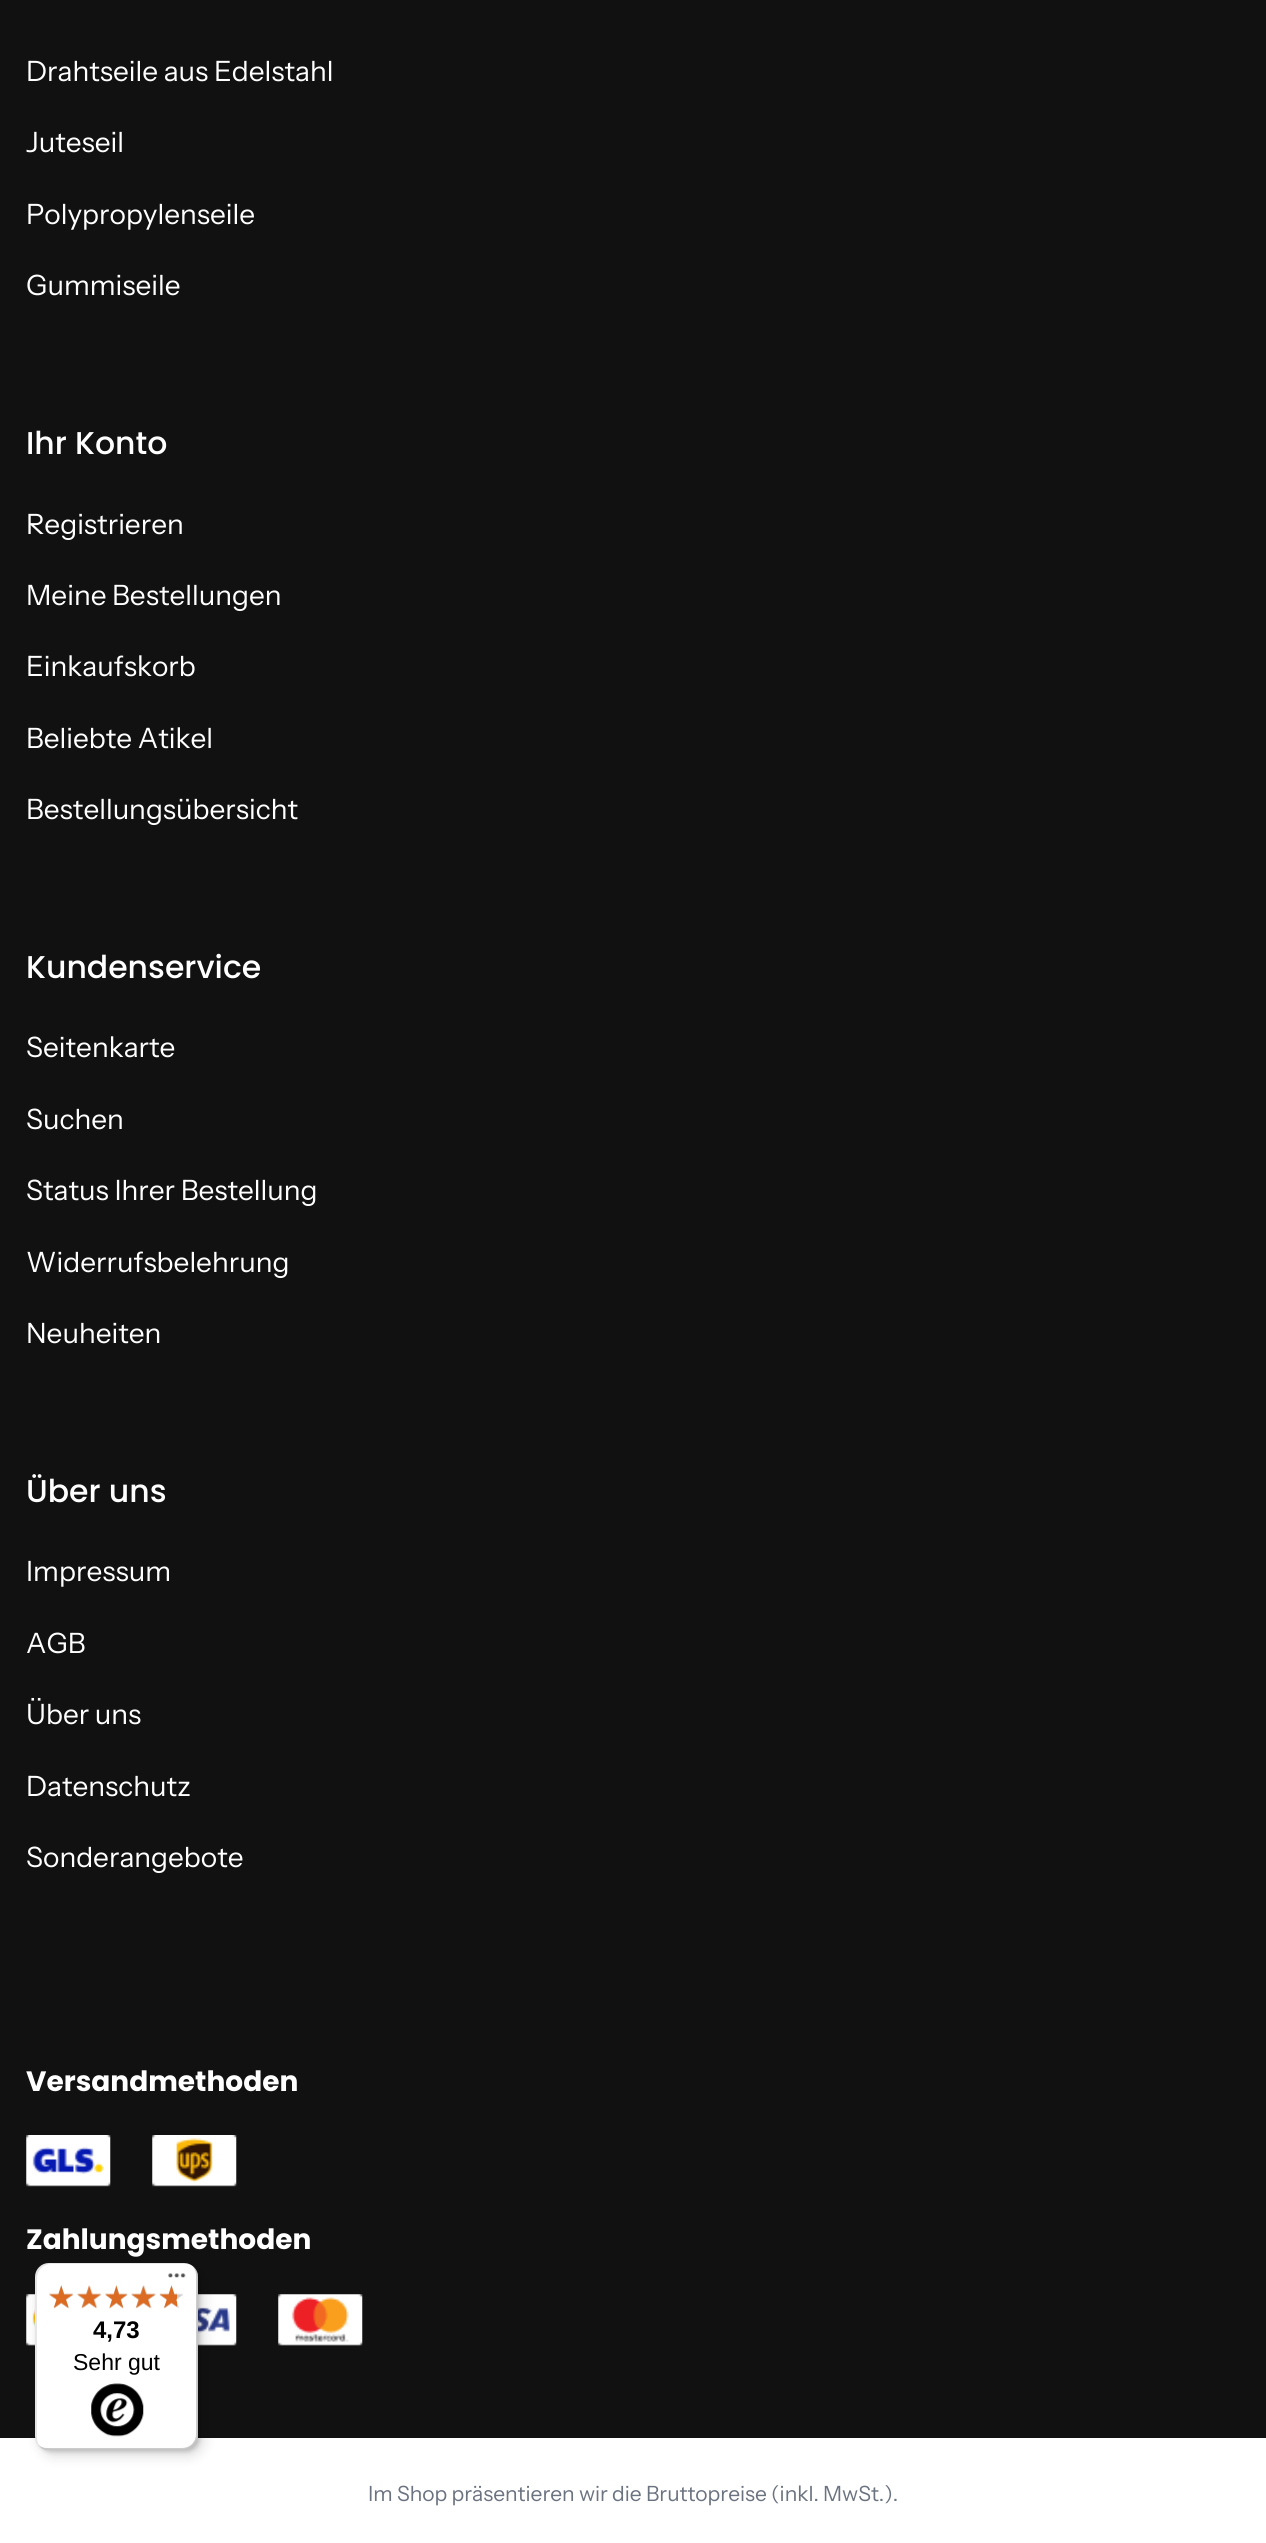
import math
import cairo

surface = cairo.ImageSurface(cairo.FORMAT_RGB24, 1266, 2543)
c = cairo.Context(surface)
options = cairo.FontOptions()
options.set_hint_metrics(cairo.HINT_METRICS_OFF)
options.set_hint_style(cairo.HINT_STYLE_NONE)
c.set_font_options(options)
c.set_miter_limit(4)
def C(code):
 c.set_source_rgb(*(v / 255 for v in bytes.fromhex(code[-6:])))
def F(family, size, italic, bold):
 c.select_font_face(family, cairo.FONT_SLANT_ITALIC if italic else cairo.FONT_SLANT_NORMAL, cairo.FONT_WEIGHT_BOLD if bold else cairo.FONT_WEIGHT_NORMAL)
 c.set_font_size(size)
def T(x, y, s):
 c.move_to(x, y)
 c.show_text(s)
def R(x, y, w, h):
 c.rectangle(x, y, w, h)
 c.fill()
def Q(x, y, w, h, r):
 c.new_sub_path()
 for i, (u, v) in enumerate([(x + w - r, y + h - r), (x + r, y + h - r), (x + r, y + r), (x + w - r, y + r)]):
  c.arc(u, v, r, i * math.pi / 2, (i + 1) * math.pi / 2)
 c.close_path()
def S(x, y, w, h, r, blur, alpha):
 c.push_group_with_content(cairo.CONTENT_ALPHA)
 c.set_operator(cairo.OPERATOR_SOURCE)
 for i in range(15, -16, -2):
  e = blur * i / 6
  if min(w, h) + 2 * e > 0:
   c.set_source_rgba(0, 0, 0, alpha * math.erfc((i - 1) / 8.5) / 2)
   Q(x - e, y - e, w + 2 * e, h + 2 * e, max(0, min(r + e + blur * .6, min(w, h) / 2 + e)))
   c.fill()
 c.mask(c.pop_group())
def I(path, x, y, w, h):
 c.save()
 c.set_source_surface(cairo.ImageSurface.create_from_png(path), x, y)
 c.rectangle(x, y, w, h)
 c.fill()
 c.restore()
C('ffffff')
c.paint()
C('111111')
R(0,0,1266,2438)
F('Instrument Sans',28,0,0)
C('ffffff')
T(26,81,'Drahtseile aus Edelstahl')
T(26,152,'Juteseil')
T(26,224,'Polypropylenseile')
T(26,295,'Gummiseile')
F('Poppins Medium',31.5,0,0)
T(26,454,'Ihr Konto')
F('Instrument Sans',28,0,0)
T(26,534,'Registrieren')
T(26,605,'Meine Bestellungen')
T(26,676,'Einkaufskorb')
T(26,748,'Beliebte Atikel')
T(26,819,'Bestellungsübersicht')
F('Poppins Medium',31.5,0,0)
T(26,978,'Kundenservice')
F('Instrument Sans',28,0,0)
T(26,1057,'Seitenkarte')
T(26,1129,'Suchen')
T(26,1200,'Status Ihrer Bestellung')
T(26,1272,'Widerrufsbelehrung')
T(26,1343,'Neuheiten')
F('Poppins Medium',31.5,0,0)
T(26,1502,'Über uns')
F('Instrument Sans',28,0,0)
T(26,1581,'Impressum')
T(26,1653,'AGB')
T(26,1724,'Über uns')
T(26,1796,'Datenschutz')
T(26,1867,'Sonderangebote')
F('Poppins',28,0,1)
T(26,2091,'Versandmethoden')
I('1.png',26,2135,85,52)
I('2.png',152,2135,85,52)
T(26,2249,'Zahlungsmethoden')
I('3.png',26,2294,9,52)
I('4.png',198,2294,39,52)
I('5.png',278,2294,85,52)
F('Instrument Sans',21,0,0)
C('6b7280')
T(368,2501,'Im Shop präsentieren wir die Bruttopreise (inkl. MwSt.).')
C('000000')
S(40,2268,163,187,14,7,.15)
S(37,2265,163,187,14,2,.15)
C('ffffff')
Q(35,2263,163,187,14)
c.fill()
c.set_source_rgba(0,0,0,0.1)
c.new_path()
c.move_to(51,2264)
c.line_to(186,2264)
c.curve_to(188,2264,191,2265,193,2266)
c.curve_to(190,2264,187,2263,184,2263)
c.line_to(49,2263)
c.curve_to(41,2263,35,2269,35,2277)
c.line_to(35,2436)
c.curve_to(35,2441,37,2445,41,2447)
c.curve_to(38,2445,37,2441,37,2438)
c.line_to(37,2278)
c.curve_to(37,2271,43,2264,51,2264)
c.close_path()
c.fill()
c.set_source_rgba(0,0,0,0.2)
c.new_path()
c.move_to(38,2444)
c.curve_to(40,2448,44,2450,49,2450)
c.line_to(184,2450)
c.curve_to(192,2450,198,2444,198,2436)
c.line_to(198,2277)
c.curve_to(198,2273,196,2269,193,2267)
c.curve_to(195,2269,196,2272,196,2275)
c.line_to(196,2434)
c.curve_to(196,2442,190,2448,182,2448)
c.line_to(47,2448)
c.curve_to(44,2448,40,2447,38,2444)
c.close_path()
c.fill()
c.set_source_rgba(0.196,0.196,0.196,0.2)
c.new_path()
c.move_to(40,2446)
c.curve_to(42,2449,45,2450,49,2450)
c.line_to(184,2450)
c.curve_to(192,2450,198,2444,198,2436)
c.line_to(198,2277)
c.curve_to(198,2272,196,2268,192,2266)
c.curve_to(195,2268,197,2272,197,2276)
c.line_to(197,2435)
c.curve_to(197,2443,190,2449,183,2449)
c.line_to(48,2449)
c.curve_to(45,2449,42,2448,40,2446)
c.close_path()
c.fill()
c.set_source_rgba(1,1,1,0.3)
c.new_path()
c.move_to(40,2446)
c.curve_to(42,2449,45,2450,49,2450)
c.line_to(184,2450)
c.curve_to(192,2450,198,2444,198,2436)
c.line_to(198,2277)
c.curve_to(198,2273,197,2270,194,2268)
c.curve_to(196,2270,197,2273,197,2276)
c.line_to(197,2435)
c.curve_to(197,2443,191,2449,183,2449)
c.line_to(48,2449)
c.curve_to(45,2449,42,2448,40,2446)
c.close_path()
c.fill()
I('6.png',168,2273,18,5)
I('7.png',49,2285,24,23)
I('8.png',77,2285,24,23)
I('9.png',105,2285,22,24)
I('10.png',131,2285,25,23)
I('11.png',160,2285,23,24)
I('12.png',49,2285,24,24)
I('13.png',77,2285,25,24)
I('14.png',105,2285,23,24)
I('15.png',131,2285,25,24)
I('16.png',159,2285,18,24)
F('Liberation Sans',24,0,1)
C('000000')
T(93,2338,'4,73')
F('Liberation Sans',23,0,0)
T(73,2370,'Sehr gut')
I('17.png',91,2383,53,54)
surface.write_to_png('o.png')
